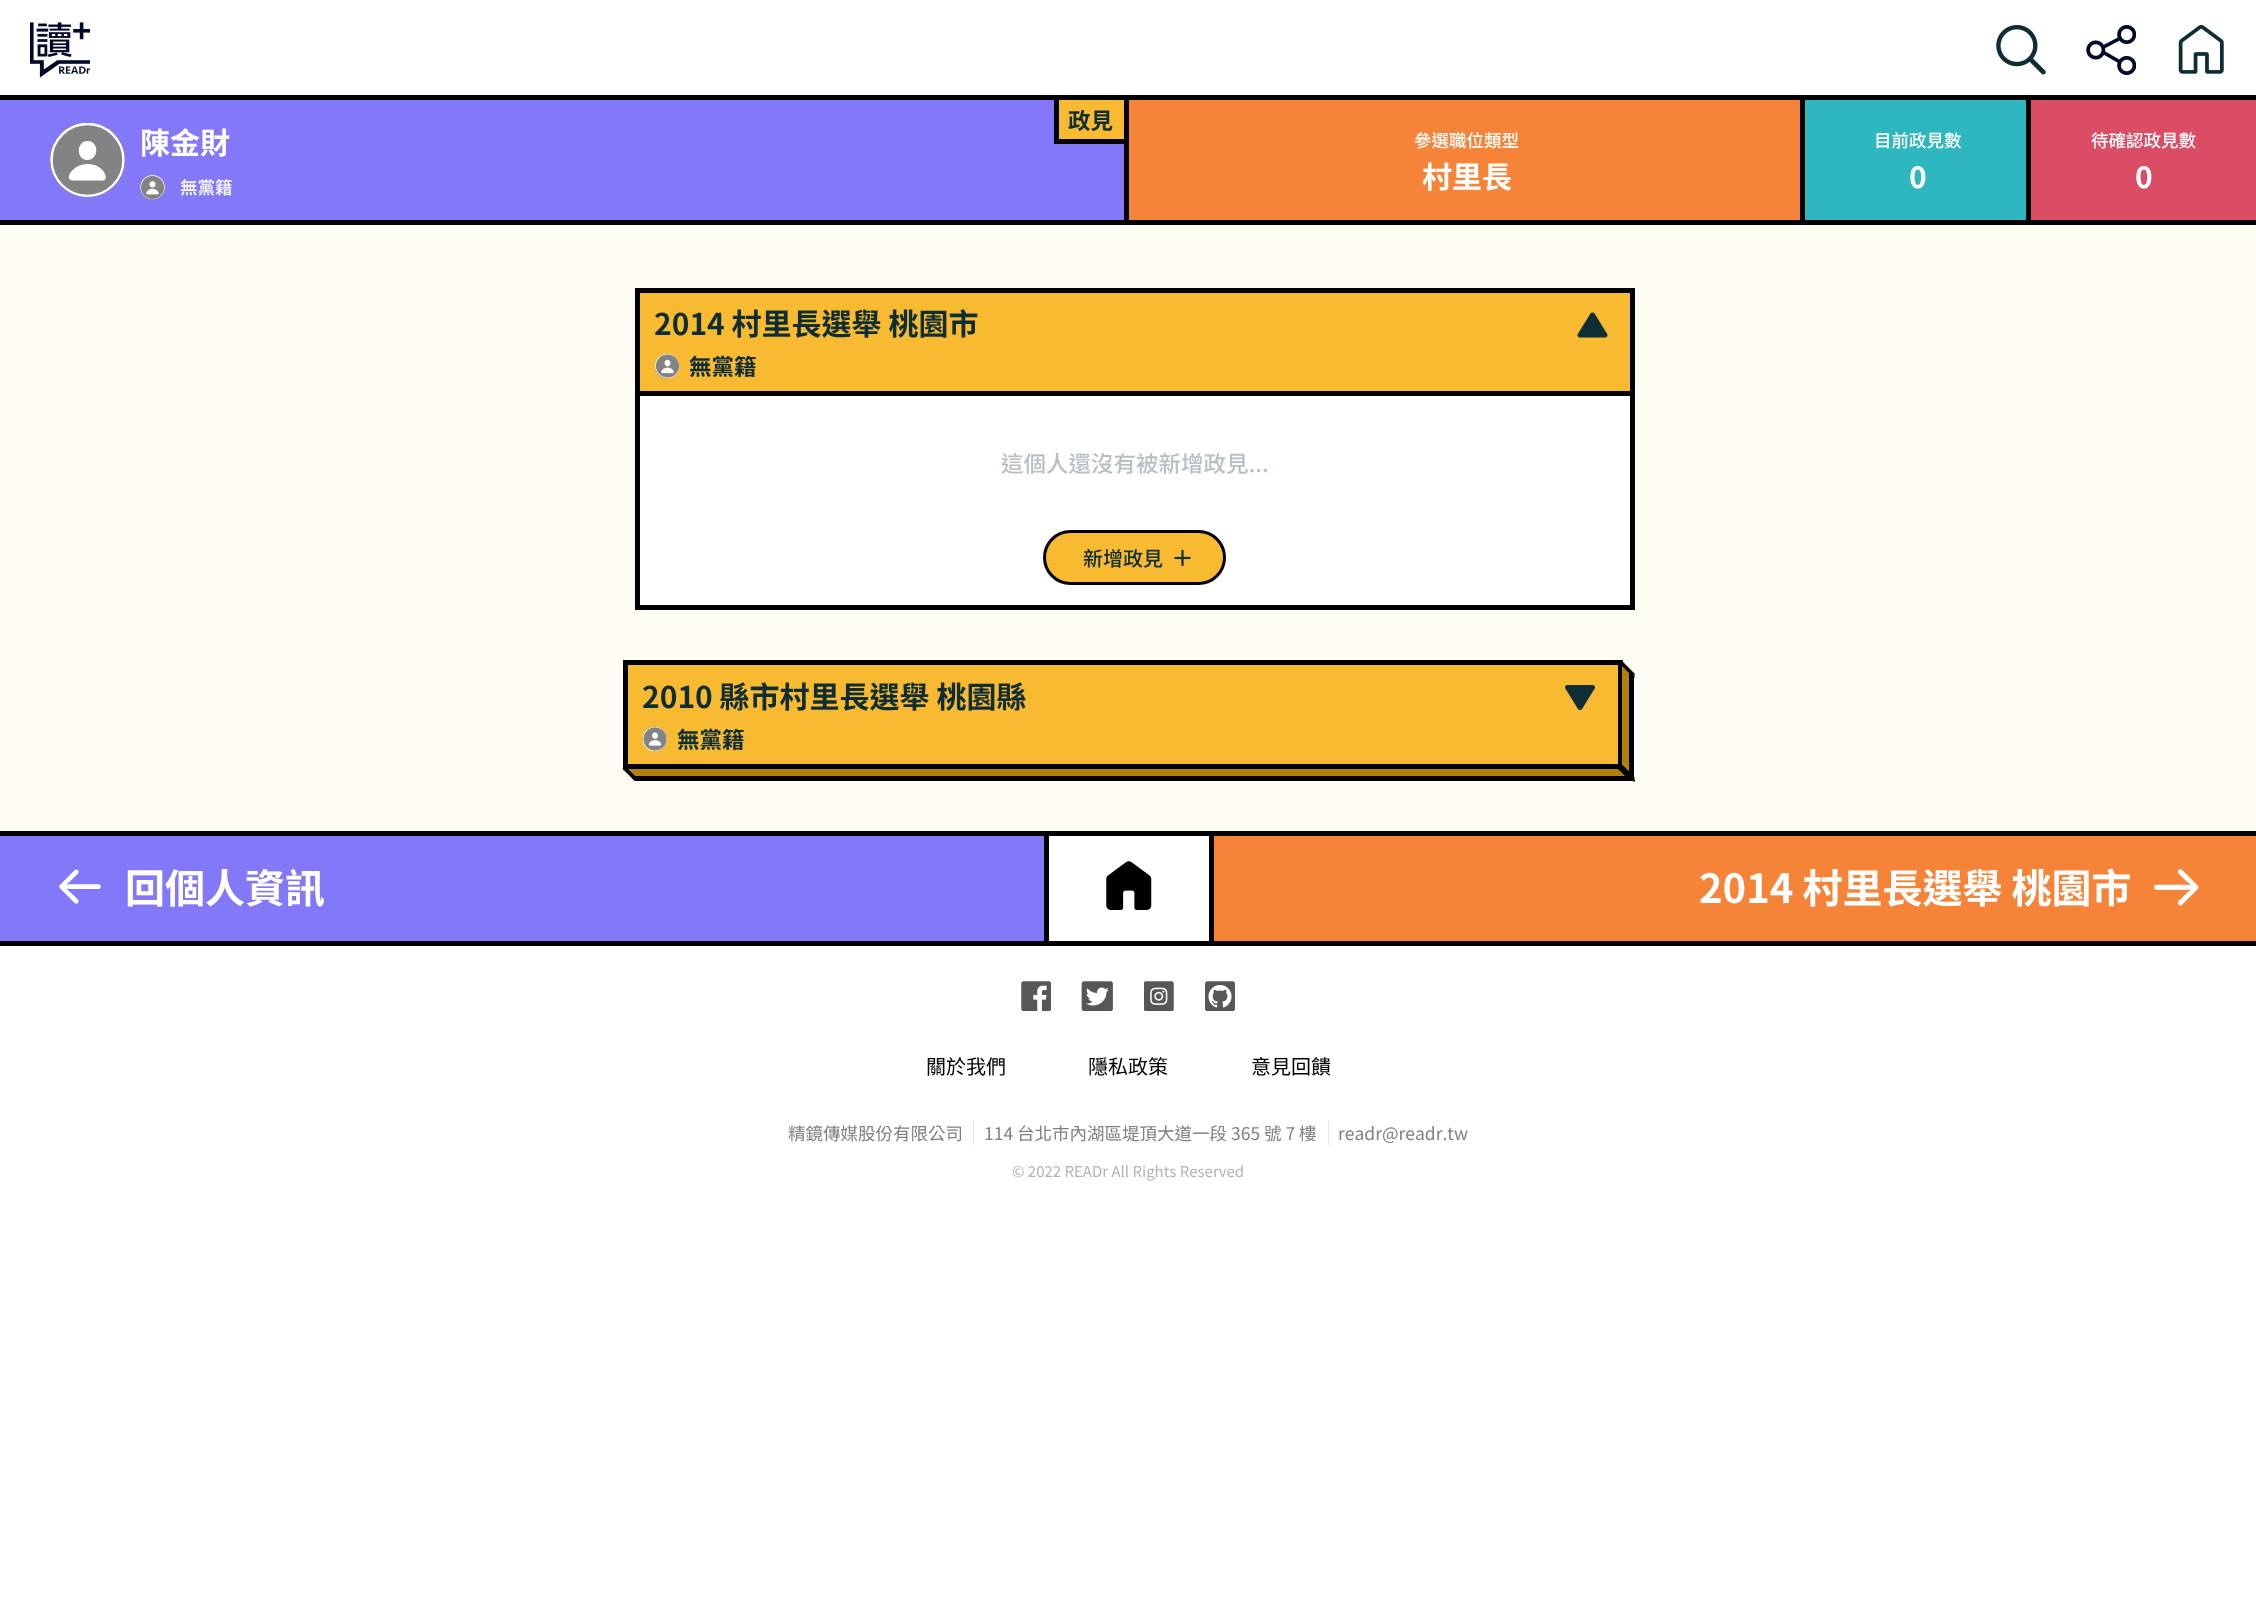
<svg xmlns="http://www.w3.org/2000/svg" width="2256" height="1606">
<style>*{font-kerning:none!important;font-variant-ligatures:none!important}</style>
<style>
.a{font:bold 22.5px Noto Sans TC;fill:#0f2d35}
.b{font:bold 30px Noto Sans TC;fill:#fff}
.c{font:500 17.5px Noto Sans TC;fill:#fff}
.d{font:bold 30px Noto Sans TC;fill:#0f2d35}
.e{font:500 22.5px Noto Sans TC;fill:#b7c0c2}
.f{font:500 20px Noto Sans TC;fill:#0f2d35}
.g{font:bold 40px Noto Sans TC;fill:#fff}
.h{font:20px Noto Sans TC;fill:#000}
.i{font:17.5px Noto Sans TC;fill:#808080}
.j{font:15px Noto Sans TC;fill:#b3b3b3}
</style>
<defs>
<clipPath id="clip1"><path d="M50 123h75v75H50z"/></clipPath>
<clipPath id="clip2"><path d="M87.5 122c20.5 0 37.5 16.5 37.5 37.5c0 20.5-17 37.5-37.5 37.5c-20.5 0-37.5-17-37.5-37.5c0-21 17-37.5 37.5-37.5z"/></clipPath>
</defs>
<rect width="100%" height="100%" fill="#fff"/>
<path fill="#000" d="M0 95h2256v5H0z"/>
<image href="1.png" x="30" y="22" width="60" height="56"/>
<image href="2.png" x="1996" y="25" width="50" height="50"/>
<image href="3.png" x="2086" y="25" width="50" height="50"/>
<image href="4.png" x="2178" y="25" width="46" height="49"/>
<path fill="#fffcf3" d="M0 225h2256v606H0z"/>
<path fill="#8379f8" d="M0 100h1124v120H0z"/>
<path fill="#000" d="M1124 100h5v125H1124z"/>
<path fill="#000" d="M0 220h1129v5H0z"/>
<path fill="#f7ba31" d="M1059 100h65v39H1059z"/>
<path fill="#000" d="M1054 100h5v44H1054z"/>
<path fill="#000" d="M1054 139h75v5H1054z"/>
<path fill="#838383" d="M88 123c20 0 37 16 37 37c0 20-17 37-37 37c-21 0-38-17-38-37c0-21 17-37 38-37z"/>
<g clip-path="url(#clip1)">
<g clip-path="url(#clip2)">
<circle fill="none" stroke="#fff" stroke-width="2.5" cx="87.5" cy="160" r="36"/>
</g>
</g>
<path fill="#fff" d="M73 180.5h24c2 0 6 .5 7.5-.5c2-1 1.5-3 1-4.5c-1-4.5-5-7.5-8.5-9.5c-20.5-9-36 14.5-24 14.5zm14.5-20.5c11.5 0 12-19 0-19c-11.5 0-11.5 19 0 19z"/>
<path fill="#838383" d="M152.5 175c7 0 12.5 5.5 12.5 12c0 7-5.5 12.5-12.5 12.5c-7 0-12.5-5.5-12.5-12.5c0-6.5 5.5-12 12.5-12z"/>
<image href="5.png" x="140" y="175" width="25" height="25"/>
<path fill="#f58439" d="M1129 100h671v120H1129z"/>
<path fill="#000" d="M1800 100h5v125H1800z"/>
<path fill="#000" d="M1129 220h676v5H1129z"/>
<path fill="#2fb7bf" d="M1805 100h221v120H1805z"/>
<path fill="#000" d="M2026 100h5v125H2026z"/>
<path fill="#000" d="M1805 220h451v5H1805z"/>
<path fill="#db4c65" d="M2031 100h225v120H2031z"/>
<path fill="#f7ba31" d="M640 293h990v98H640z"/>
<path fill="#000" d="M1630 288h5v322H1630z"/>
<path fill="#000" d="M635 288h5v322H635z"/>
<path fill="#000" d="M635 391h1000v5H635z"/>
<path fill="#000" d="M635 288h1000v5H635z"/>
<path fill="#838383" d="M667.5 354c15.5 0 16.5 23.5-.5 24.5c-12 1-16-16-6.5-22.5c2-1.5 4.5-2 7-2z"/>
<image href="6.png" x="655" y="354" width="25" height="25"/>
<image href="7.png" x="1577" y="312" width="31" height="26"/>
<path fill="#fff" d="M640 396h990v209H640z"/>
<path fill="#000" d="M635 605h1000v5H635z"/>
<rect fill="#f7ba31" stroke="#000" stroke-width="3" x="1044.5" y="531.5" width="180" height="52" rx="26"/>
<image href="8.png" x="1174" y="549" width="17" height="18"/>
<path fill="#f7ba31" d="M628 665h990v99H628z"/>
<path fill="#000" d="M1618 660h4v109H1618z"/>
<path fill="#000" d="M623 660h5v109H623z"/>
<path fill="#000" d="M623 764h1000v5H623z"/>
<path fill="#000" d="M623 660h1000v5H623z"/>
<path fill="#838383" d="M654.5 726.5c2.5 0 5 1 7 2c9.5 6.5 5.5 23.5-6 22.5c-17-1.5-16-24.5-1-24.5z"/>
<image href="9.png" x="643" y="726" width="24" height="25"/>
<image href="10.png" x="1565" y="685" width="30" height="25"/>
<path fill="#b3800d" d="M622 769h1000l13 12h-1000z"/>
<path fill="#000" d="M1617.5 768.5h5l12.5 12.5h-5z"/>
<path fill="#000" d="M622.5 768.5h5l12.5 12.5h-5z"/>
<path fill="#000" d="M630 776h1000l5 5h-1000z"/>
<path fill="#b3800d" d="M1622 661l12 13v108l-12-13z"/>
<path fill="#000" d="M1629 669l5 5v108l-5-5z"/>
<path fill="#000" d="M1622 661l12.5 12.5v5l-12.5-12.5z"/>
<path fill="#000" d="M1622 764.5l12.5 12.5v5l-12.5-12.5z"/>
<path fill="#8379f8" d="M0 836h1044v105H0z"/>
<path fill="#000" d="M1044 831h5v110H1044z"/>
<path fill="#000" d="M0 831h1209v5H0z"/>
<image href="11.png" x="59" y="869" width="42" height="35"/>
<image href="12.png" x="1106" y="861" width="46" height="49"/>
<path fill="#f58439" d="M1214 836h1042v105H1214z"/>
<path fill="#000" d="M1209 831h5v110H1209z"/>
<path fill="#000" d="M1209 831h1047v5H1209z"/>
<image href="13.png" x="2154" y="869" width="45" height="37"/>
<path fill="#000" d="M0 941h2256v5H0z"/>
<image href="14.png" x="1021" y="981" width="30" height="30"/>
<image href="15.png" x="1081" y="981" width="32" height="30"/>
<image href="16.png" x="1144" y="981" width="30" height="30"/>
<image href="17.png" x="1205" y="981" width="30" height="30"/>
<path fill="#e6e6e6" d="M973 1120h1v25H973z"/>
<path fill="#e6e6e6" d="M1328 1120h1v25H1328z"/>
<text class="a" x="1068" y="129">政見</text>
<text class="b" x="140" y="154">陳金財</text>
<text class="c" x="180" y="194">無黨籍</text>
<text class="c" x="1414" y="147">參選職位類型</text>
<text class="b" x="1422" y="188">村里長</text>
<text class="c" x="1874" y="147">目前政見數</text>
<text class="b" x="1909" y="188">0</text>
<text class="c" x="2091" y="147">待確認政見數</text>
<text class="b" x="2135" y="188">0</text>
<text class="d" x="654" y="335">2014 村里長選舉 桃園市</text>
<text class="a" x="689" y="375">無黨籍</text>
<text class="e" x="1001" y="472">這個人還沒有被新增政見...</text>
<text class="f" x="1083" y="566">新增政見</text>
<text class="d" x="642" y="708">2010 縣市村里長選舉 桃園縣</text>
<text class="a" x="677" y="748">無黨籍</text>
<text class="g" x="125" y="903">回個人資訊</text>
<text class="g" x="1699" y="903">2014 村里長選舉 桃園市</text>
<text class="h" x="926" y="1074">關於我們</text>
<text class="h" x="1088" y="1074">隱私政策</text>
<text class="h" x="1251" y="1074">意見回饋</text>
<text class="i" x="788" y="1140">精鏡傳媒股份有限公司</text>
<text class="i" x="984" y="1140">114 台北市內湖區堤頂大道一段 365 號 7 樓</text>
<text class="i" x="1338" y="1140">readr@readr.tw</text>
<text class="j" x="1012" y="1177">© 2022 READr All Rights Reserved</text>
</svg>
